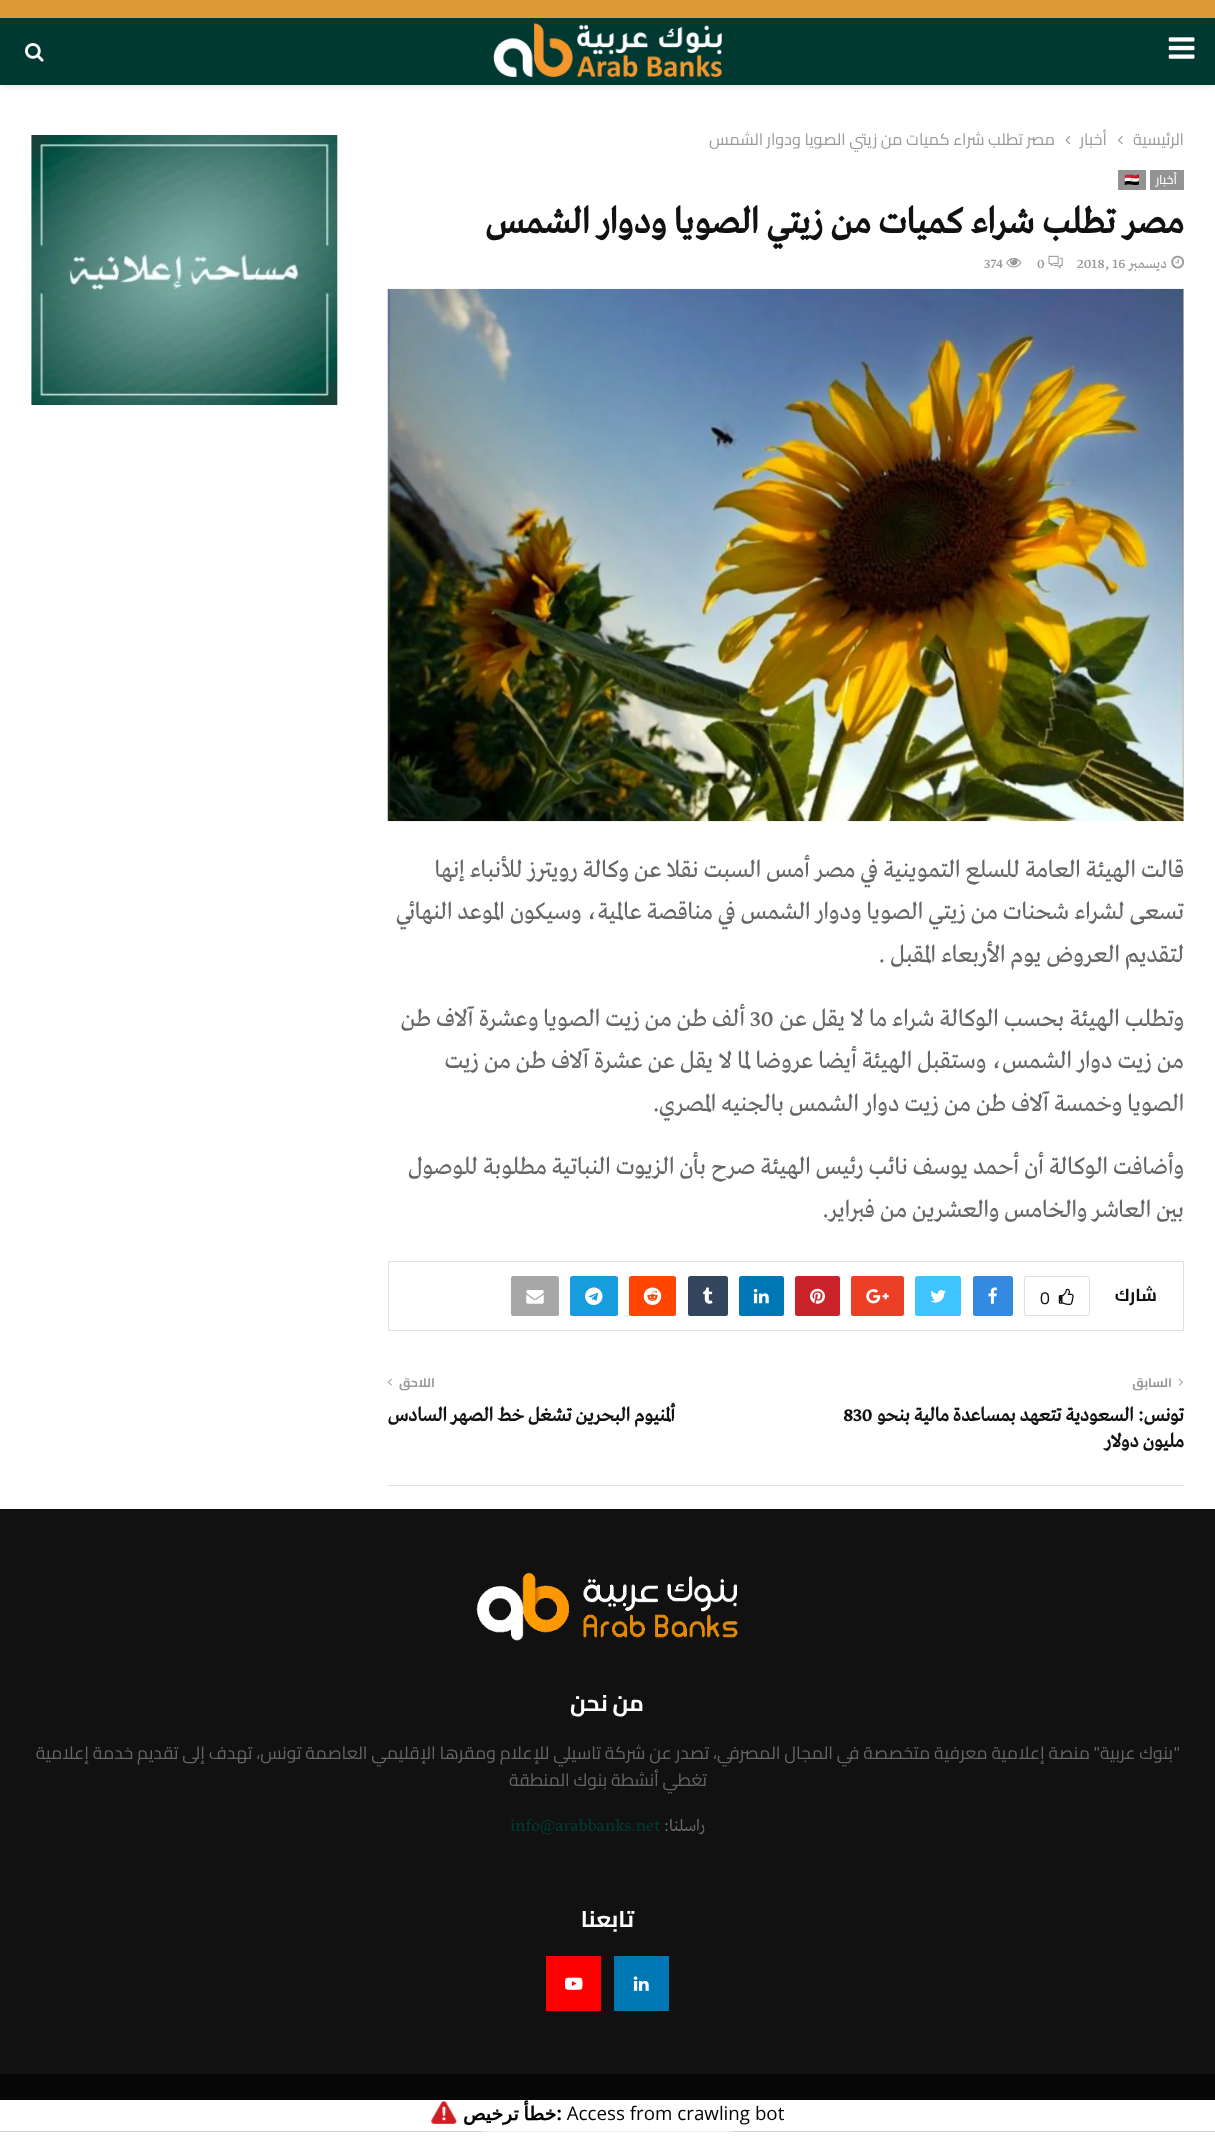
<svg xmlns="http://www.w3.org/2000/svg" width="1215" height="2137">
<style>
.a{font:16.25px Cairo;direction:rtl;fill:#999}
.b{font:500 12.5px Cairo;direction:rtl;fill:#fff}
.c{font:12.5px Noto Color Emoji;fill:#fff}
.d{font:bold 37.5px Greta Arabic;direction:rtl;fill:#111}
.e{font:15px Greta Arabic;direction:rtl;fill:#999}
.f{font:15px Greta Arabic;fill:#999}
.g{font:25px Greta Arabic;direction:rtl;fill:#666}
.h{font:25px Greta Arabic;fill:#666}
.i{font:bold 17.5px Cairo;direction:rtl;fill:#111}
.j{font:17.5px 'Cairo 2';fill:#111}
.k{font:bold 12.5px Cairo;direction:rtl;fill:#999}
.l{font:bold 20px Greta Arabic;direction:rtl;fill:#111}
.m{font:bold 20px Greta Arabic;fill:#111}
.n{font:bold 22.5px Cairo;direction:rtl;fill:#fff}
.o{font:17.5px 'Cairo 2';direction:rtl;fill:#666}
.p{font:17.5px Cairo;direction:rtl;fill:#666}
.q{font:17.5px Greta Arabic;direction:rtl;fill:#666}
.r{font:17.5px Greta Arabic;fill:#003931}
</style>
<rect width="100%" height="100%" fill="#fff"/>
<path fill="#d93" d="M0 0h1215v18H0z"/>
<path fill="#bebebe75" filter="blur(3px)" d="M0 19h1215v67H0z"/>
<path fill="#003931" d="M0 18h1215v67H0z"/>
<image href="1.png" x="1168" y="37" width="27" height="22"/>
<image href="2.png" x="493" y="23" width="229" height="54"/>
<image href="3.png" x="25" y="43" width="19" height="19"/>
<image href="4.png" x="1118" y="136" width="5" height="9"/>
<image href="5.png" x="1065" y="136" width="6" height="9"/>
<path fill="#939393" d="M1150 170h34v20H1150z"/>
<path fill="#939393" d="M1118 170h28v20H1118z"/>
<image href="6.png" x="1171" y="255" width="14" height="14"/>
<image href="7.png" x="1048" y="255" width="15" height="14"/>
<image href="8.png" x="1006" y="257" width="16" height="11"/>
<image href="9.png" x="387" y="288" width="797" height="534"/>
<path fill="none" stroke="#dedede" d="M388.5 1261.5h795v69H388.5z"/>
<rect fill="none" stroke="#dedede" x="1024.5" y="1276.5" width="65" height="39" rx="2"/>
<image href="10.png" x="1058" y="1288" width="16" height="17"/>
<rect fill="#338ae0" x="973" y="1276" width="40" height="40" rx="2.5"/>
<image href="11.png" x="988" y="1287" width="9" height="17"/>
<rect fill="#40c4ff" x="915" y="1276" width="46" height="40" rx="2.5"/>
<image href="12.png" x="930" y="1290" width="16" height="13"/>
<rect fill="#eb4026" x="851" y="1276" width="53" height="40" rx="2.5"/>
<image href="13.png" x="866" y="1289" width="23" height="15"/>
<rect fill="#c92228" x="795" y="1276" width="45" height="40" rx="2.5"/>
<image href="14.png" x="810" y="1288" width="15" height="16"/>
<rect fill="#0077b5" x="739" y="1276" width="45" height="40" rx="2.5"/>
<image href="15.png" x="753" y="1289" width="16" height="15"/>
<rect fill="#34465d" x="688" y="1276" width="40" height="40" rx="2.5"/>
<image href="16.png" x="703" y="1287" width="10" height="17"/>
<rect fill="#ff4500" x="629" y="1276" width="47" height="40" rx="2.5"/>
<image href="17.png" x="643" y="1287" width="19" height="18"/>
<rect fill="#179cde" x="570" y="1276" width="48" height="40" rx="2.5"/>
<image href="18.png" x="585" y="1287" width="18" height="18"/>
<rect fill="#a7a7a7" x="511" y="1276" width="48" height="40" rx="2.5"/>
<image href="19.png" x="526" y="1290" width="18" height="14"/>
<path fill="#dedede" d="M388 1485h796v1H388z"/>
<image href="20.png" x="1178" y="1378" width="5" height="8"/>
<image href="21.png" x="388" y="1378" width="4" height="8"/>
<path fill="#f5f5f5" d="M31 135h307v270H31z"/>
<image href="22.png" x="31" y="135" width="307" height="270"/>
<path fill="#111" d="M0 1509h1215v565H0z"/>
<image href="23.png" x="476" y="1572" width="262" height="69"/>
<path fill="#0077b5" d="M614 1956h55v55H614z"/>
<image href="24.png" x="633" y="1976" width="16" height="15"/>
<path fill="#f00" d="M546 1956h55v55H546z"/>
<image href="25.png" x="565" y="1977" width="18" height="13"/>
<path fill="#060606" d="M0 2074h1215v58H0z"/>
<image href="26.png" x="0" y="2100" width="1215" height="37"/>
<text class="a" x="1184" y="145">الرئيسية</text>
<text class="a" x="1107" y="145">أخبار</text>
<text class="a" x="1055" y="145">مصر تطلب شراء كميات من زيتي الصويا ودوار الشمس</text>
<text class="b" x="1177" y="184">أخبار</text>
<text class="c" x="1124" y="184">🇪🇬</text>
<text class="d" x="1184" y="233">مصر تطلب شراء كميات من زيتي الصويا ودوار الشمس</text>
<text class="e" x="1167" y="268">ديسمبر</text>
<text class="f" x="1077" y="268">2018, 16</text>
<text class="f" x="1037" y="268">0</text>
<text class="f" x="984" y="268">374</text>
<text class="g" x="1184" y="877">قالت الهيئة العامة للسلع التموينية في مصر أمس السبت نقلا عن وكالة رويترز للأنباء إنها</text>
<text class="g" x="1184" y="919">تسعى لشراء شحنات من زيتي الصويا ودوار الشمس في مناقصة عالمية، وسيكون الموعد النهائي</text>
<text class="g" x="1184" y="962">لتقديم العروض يوم الأربعاء المقبل .</text>
<text class="g" x="1184" y="1026">وتطلب الهيئة بحسب الوكالة شراء ما لا يقل عن</text>
<text class="h" x="750" y="1026">30</text>
<text class="g" x="745" y="1026">ألف طن من زيت الصويا وعشرة آلاف طن</text>
<text class="g" x="1184" y="1068">من زيت دوار الشمس، وستقبل الهيئة أيضا عروضا لما لا يقل عن عشرة آلاف طن من زيت</text>
<text class="g" x="1184" y="1111">الصويا وخمسة آلاف طن من زيت دوار الشمس بالجنيه المصري.</text>
<text class="g" x="1184" y="1174">وأضافت الوكالة أن أحمد يوسف نائب رئيس الهيئة صرح بأن الزيوت النباتية مطلوبة للوصول</text>
<text class="g" x="1184" y="1217">بين العاشر والخامس والعشرين من فبراير.</text>
<text class="i" x="1157" y="1301">شارك</text>
<text class="j" x="1040" y="1304">0</text>
<text class="k" x="1172" y="1387">السابق</text>
<text class="l" x="1184" y="1421">تونس: السعودية تتعهد بمساعدة مالية بنحو</text>
<text class="m" x="843" y="1421">830</text>
<text class="l" x="1184" y="1447">مليون دولار</text>
<text class="k" x="435" y="1387">اللاحق</text>
<text class="l" x="675" y="1421">ألمنيوم البحرين تشغل خط الصهر السادس</text>
<text class="n" x="644" y="1711">من نحن</text>
<text class="o" x="1180" y="1759">"</text>
<text class="p" x="1173" y="1759">بنوك عربية</text>
<text class="o" x="1100" y="1759">"</text>
<text class="p" x="1090" y="1759">منصة إعلامية معرفية متخصصة في المجال المصرفي، تصدر عن شركة تاسيلي للإعلام ومقرها الإقليمي العاصمة تونس، تهدف إلى تقديم خدمة إعلامية</text>
<text class="p" x="707" y="1786">تغطي أنشطة بنوك المنطقة</text>
<text class="q" x="705" y="1831">راسلنا:</text>
<text class="r" x="510" y="1831">info@arabbanks.net</text>
<text class="n" x="634" y="1927">تابعنا</text>
</svg>
